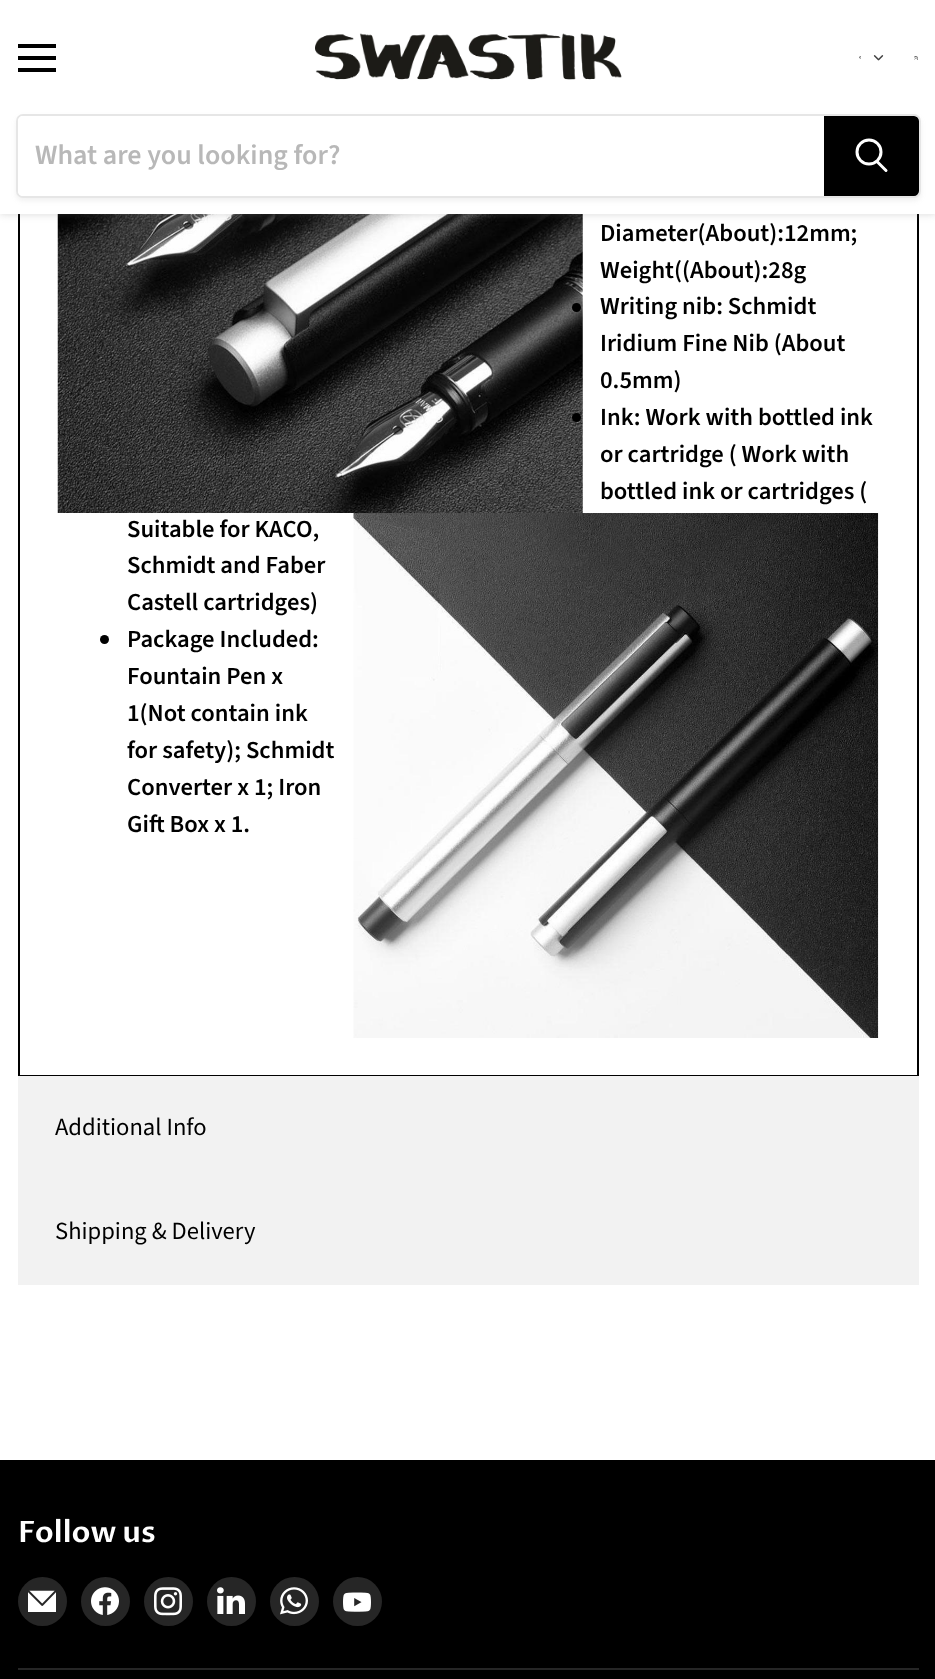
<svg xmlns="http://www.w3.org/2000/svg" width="935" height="1679">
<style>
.a{font:600 28px Source Sans Pro;fill:#b8b8b8}
.b{font:600 24.6px Source Sans Pro;fill:#000}
.c{font:24.6px Source Sans Pro;fill:#000}
.d{font:600 29.5px Proza Libre;fill:#fff}
</style>
<defs>
<clipPath id="clip1"><path d="M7 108h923v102h-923zm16 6h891c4 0 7 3 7 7v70c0 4-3 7-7 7h-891c-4 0-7-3-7-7v-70c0-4 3-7 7-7z" clip-rule="evenodd"/></clipPath>
</defs>
<rect width="100%" height="100%" fill="#fff"/>
<path fill="#000" d="M917 214h2v862H917z"/>
<path fill="#000" d="M18 1075h901v1H18z"/>
<path fill="#000" d="M18 214h2v862H18z"/>
<image href="5.png" x="57" y="214" width="526" height="299"/>
<path fill="#80808040" filter="blur(3.5px)" d="M0 2h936v213H0z"/>
<path fill="#fff" d="M0 0h935v214H0z"/>
<path fill="#000" d="M18 44h38v4H18z"/>
<path fill="#000" d="M18 56h38v4H18z"/>
<path fill="#000" d="M18 68h38v4H18z"/>
<image href="1.png" x="859" y="56" width="2" height="3"/>
<image href="2.png" x="873" y="55" width="11" height="6"/>
<image href="3.png" x="914" y="56" width="4" height="4"/>
<image href="4.png" x="315" y="33" width="307" height="47"/>
<g clip-path="url(#clip1)">
<rect fill="#8080801c" filter="blur(2.5px)" x="16" y="117" width="905" height="84" rx="7"/>
</g>
<rect fill="none" stroke="#80808033" stroke-width="2" x="17" y="115" width="903" height="82" rx="6"/>
<path fill="#fff" d="M23 116h801v80h-801c-3 0-5-2-5-5v-70c0-3 2-5 5-5z"/>
<path fill="#000" stroke="#000" stroke-width="2" d="M825 117h89c2 0 4 2 4 4v70c0 2-2 4-4 4h-89z"/>
<path fill="none" stroke="#fff" stroke-width="3" stroke-linecap="round" d="M886 170.5l-8.5-8.5"/>
<circle fill="none" stroke="#fff" stroke-width="3" cx="869" cy="152" r="12"/>
<circle fill="#000" cx="576.5" cy="307.5" r="4.5"/>
<circle fill="#000" cx="576.5" cy="417.5" r="4.5"/>
<circle fill="#000" cx="104.5" cy="639.5" r="4.5"/>
<image href="6.png" x="353" y="513" width="526" height="525"/>
<path fill="#f2f2f2" d="M18 1076h901v209H18z"/>
<path fill="#000" d="M0 1460h935v219H0z"/>
<path fill="#262626" d="M18 1668h901v2H18z"/>
<circle fill="#262626" cx="42.5" cy="1601.5" r="24.5"/>
<image href="7.png" x="28" y="1590" width="28" height="22"/>
<circle fill="#262626" cx="105.5" cy="1601.5" r="24.5"/>
<image href="8.png" x="91" y="1587" width="28" height="28"/>
<circle fill="#262626" cx="168.5" cy="1601.5" r="24.5"/>
<image href="9.png" x="154" y="1587" width="28" height="29"/>
<circle fill="#262626" cx="231.5" cy="1601.5" r="24.5"/>
<image href="10.png" x="217" y="1587" width="28" height="27"/>
<circle fill="#262626" cx="294.5" cy="1601.5" r="24.5"/>
<image href="11.png" x="280" y="1587" width="28" height="28"/>
<circle fill="#262626" cx="357.5" cy="1601.5" r="24.5"/>
<image href="12.png" x="343" y="1592" width="28" height="20"/>
<text class="a" x="35" y="164">What are you looking for?</text>
<text class="b" x="600" y="241">Diameter(About):12mm;</text>
<text class="b" x="600" y="278">Weight((About):28g</text>
<text class="b" x="600" y="314">Writing nib: Schmidt</text>
<text class="b" x="600" y="351">Iridium Fine Nib (About</text>
<text class="b" x="600" y="388">0.5mm)</text>
<text class="b" x="600" y="425">Ink: Work with bottled ink</text>
<text class="b" x="600" y="462">or cartridge ( Work with</text>
<text class="b" x="600" y="499">bottled ink or cartridges (</text>
<text class="b" x="127" y="537">Suitable for KACO,</text>
<text class="b" x="127" y="573">Schmidt and Faber</text>
<text class="b" x="127" y="610">Castell cartridges)</text>
<text class="b" x="127" y="647">Package Included:</text>
<text class="b" x="127" y="684">Fountain Pen x</text>
<text class="b" x="127" y="721">1(Not contain ink</text>
<text class="b" x="127" y="758">for safety); Schmidt</text>
<text class="b" x="127" y="795">Converter x 1; Iron</text>
<text class="b" x="127" y="832">Gift Box x 1.</text>
<text class="c" x="55" y="1135">Additional Info</text>
<text class="c" x="55" y="1239">Shipping &amp; Delivery</text>
<text class="d" x="18" y="1542">Follow us</text>
</svg>
